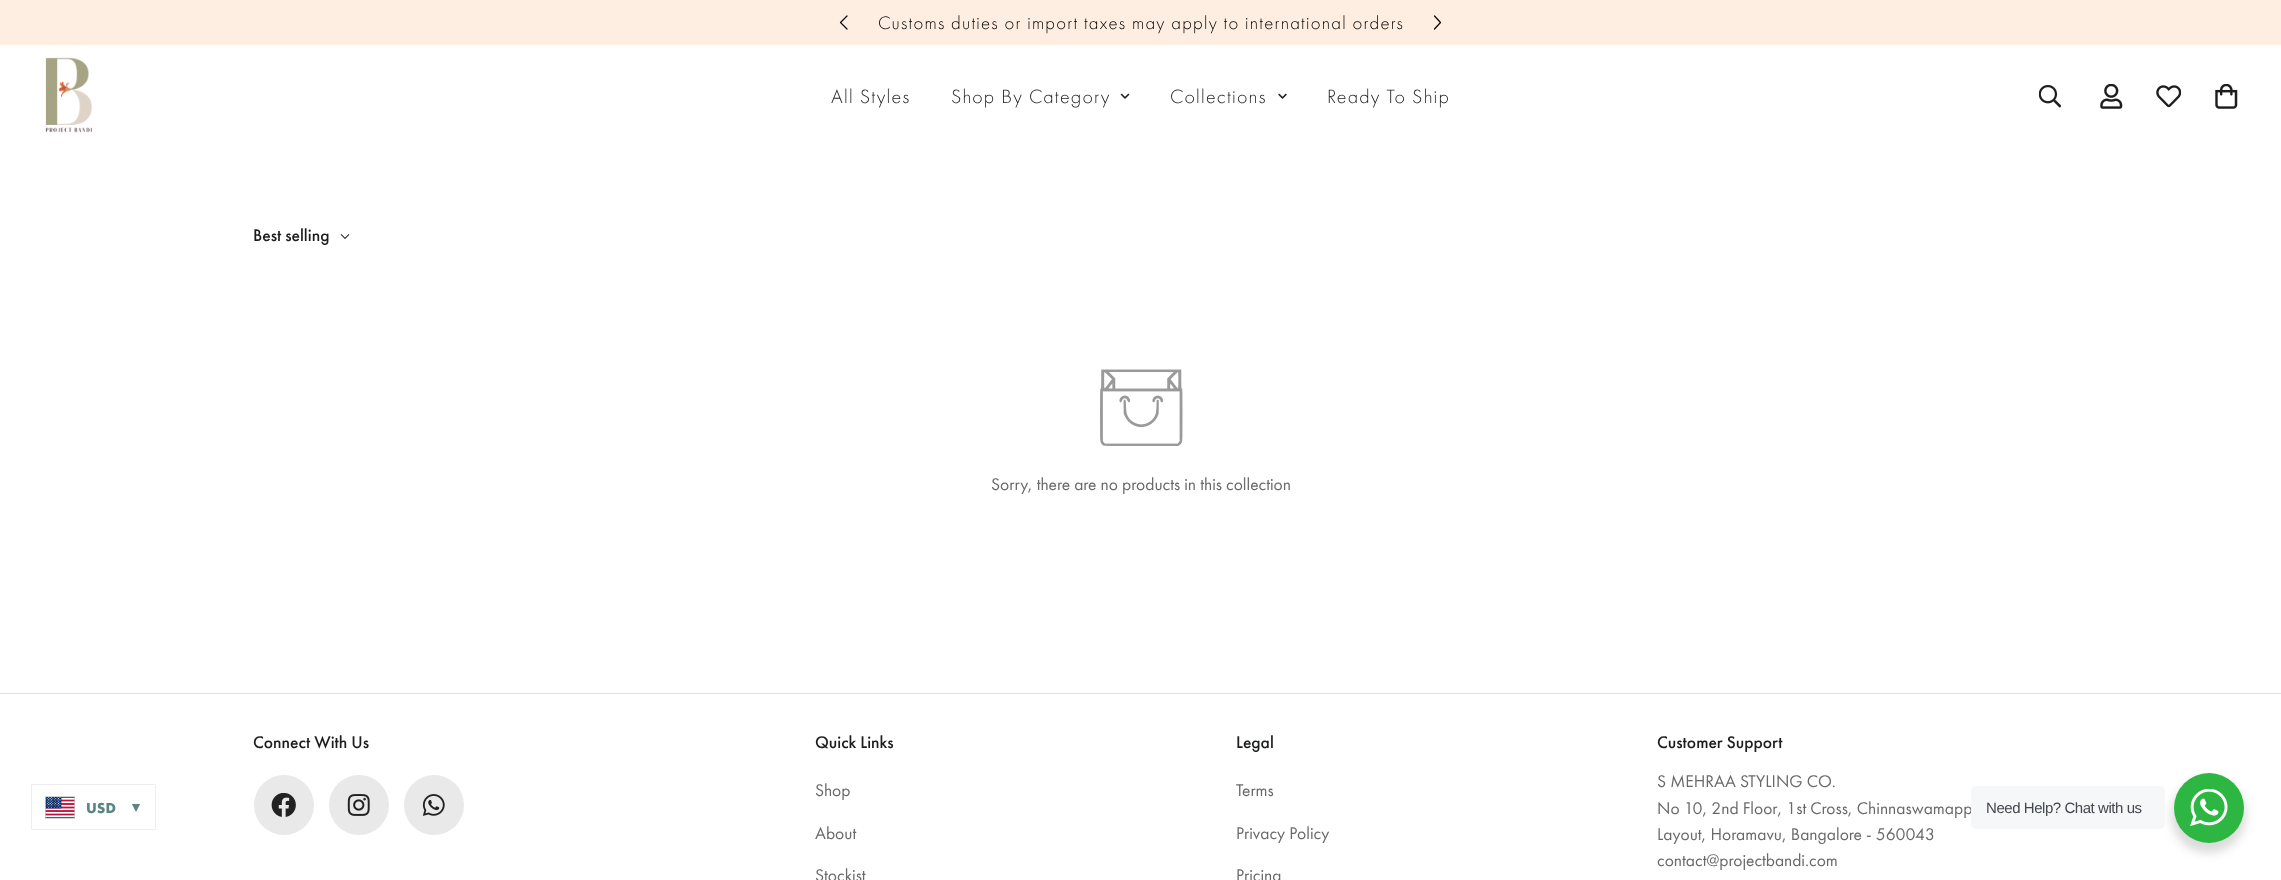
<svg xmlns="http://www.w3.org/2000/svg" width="2281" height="880">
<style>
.a{font:300 18.75px Futura PT;letter-spacing:1.25px;fill:#000}
.b{font:300 20px Futura PT;letter-spacing:1.25px;fill:#1c1d1d}
.c{font:500 17.5px Futura PT;fill:#1c1d1d}
.d{font:17.5px Futura PT;fill:#6b6868}
.e{font:bold 15px Futura PT;fill:#5b8583}
.f{font:bold 15px DejaVu Sans;fill:#5b8583}
.g{font:15px Liberation Sans;letter-spacing:-0.45px;fill:#43474e}
</style>
<rect width="100%" height="100%" fill="#fff"/>
<path fill="#feeee1" d="M0 0h2281v45H0z"/>
<path fill="none" stroke="#000" stroke-width="1.2" stroke-linecap="round" stroke-linejoin="round" d="M847 29l-6.5-6.5l6.5-6.5"/>
<path fill="none" stroke="#000" stroke-width="1.2" stroke-linecap="round" stroke-linejoin="round" d="M1434.5 29l6-6.5l-6-6.5"/>
<image href="1.png" x="45" y="57" width="48" height="76"/>
<image href="2.png" x="1120" y="93" width="10" height="6"/>
<image href="3.png" x="1278" y="93" width="9" height="6"/>
<image href="4.png" x="2039" y="85" width="22" height="23"/>
<image href="5.png" x="2100" y="84" width="23" height="25"/>
<image href="6.png" x="2156" y="85" width="25" height="23"/>
<image href="7.png" x="2215" y="84" width="23" height="25"/>
<image href="8.png" x="340" y="234" width="10" height="5"/>
<image href="9.png" x="1100" y="369" width="83" height="77"/>
<image href="10.png" x="45" y="796" width="30" height="23"/>
<path fill="none" stroke="#eee" d="M31.5 784.5h124v45H31.5z"/>
<path fill="#e3e1e1" d="M0 693h2281v1H0z"/>
<circle fill="#e9e9e9" cx="284" cy="805" r="30"/>
<image href="11.png" x="271" y="793" width="25" height="24"/>
<circle fill="#e9e9e9" cx="359" cy="805" r="30"/>
<image href="12.png" x="347" y="794" width="23" height="22"/>
<circle fill="#e9e9e9" cx="434" cy="805" r="30"/>
<image href="13.png" x="422" y="794" width="23" height="22"/>
<rect fill="#00000024" filter="blur(5px)" x="2171" y="778" width="75" height="75" rx="37.5"/>
<circle fill="#2db742" cx="2209" cy="808" r="35"/>
<image href="14.png" x="2190" y="789" width="38" height="37"/>
<text class="a" x="878" y="29">Customs duties or import taxes may apply to international orders</text>
<text class="b" x="831" y="103">All Styles</text>
<text class="b" x="951" y="103">Shop By Category</text>
<text class="b" x="1170" y="103">Collections</text>
<text class="b" x="1327" y="103">Ready To Ship</text>
<text class="c" x="253" y="241">Best selling</text>
<text class="d" x="991" y="490">Sorry, there are no products in this collection</text>
<text class="e" x="86" y="813">USD</text>
<text class="f" x="132" y="812">▾</text>
<text class="c" x="253" y="748">Connect With Us</text>
<text class="c" x="815" y="748">Quick Links</text>
<text class="d" x="815" y="796">Shop</text>
<text class="d" x="815" y="839">About</text>
<text class="d" x="815" y="881">Stockist</text>
<text class="c" x="1236" y="748">Legal</text>
<text class="d" x="1236" y="796">Terms</text>
<text class="d" x="1236" y="839">Privacy Policy</text>
<text class="d" x="1236" y="881">Pricing</text>
<text class="c" x="1657" y="748">Customer Support</text>
<text class="d" x="1657" y="787">S MEHRAA STYLING CO.</text>
<text class="d" x="1657" y="814">No 10, 2nd Floor, 1st Cross, Chinnaswamapp</text>
<text class="d" x="1657" y="840">Layout, Horamavu, Bangalore - 560043</text>
<text class="d" x="1657" y="866">contact@projectbandi.com</text>
<rect fill="#f5f7f9" x="1971" y="786" width="194" height="43" rx="5"/>
<text class="g" x="1986" y="813">Need Help? Chat with us</text>
</svg>
